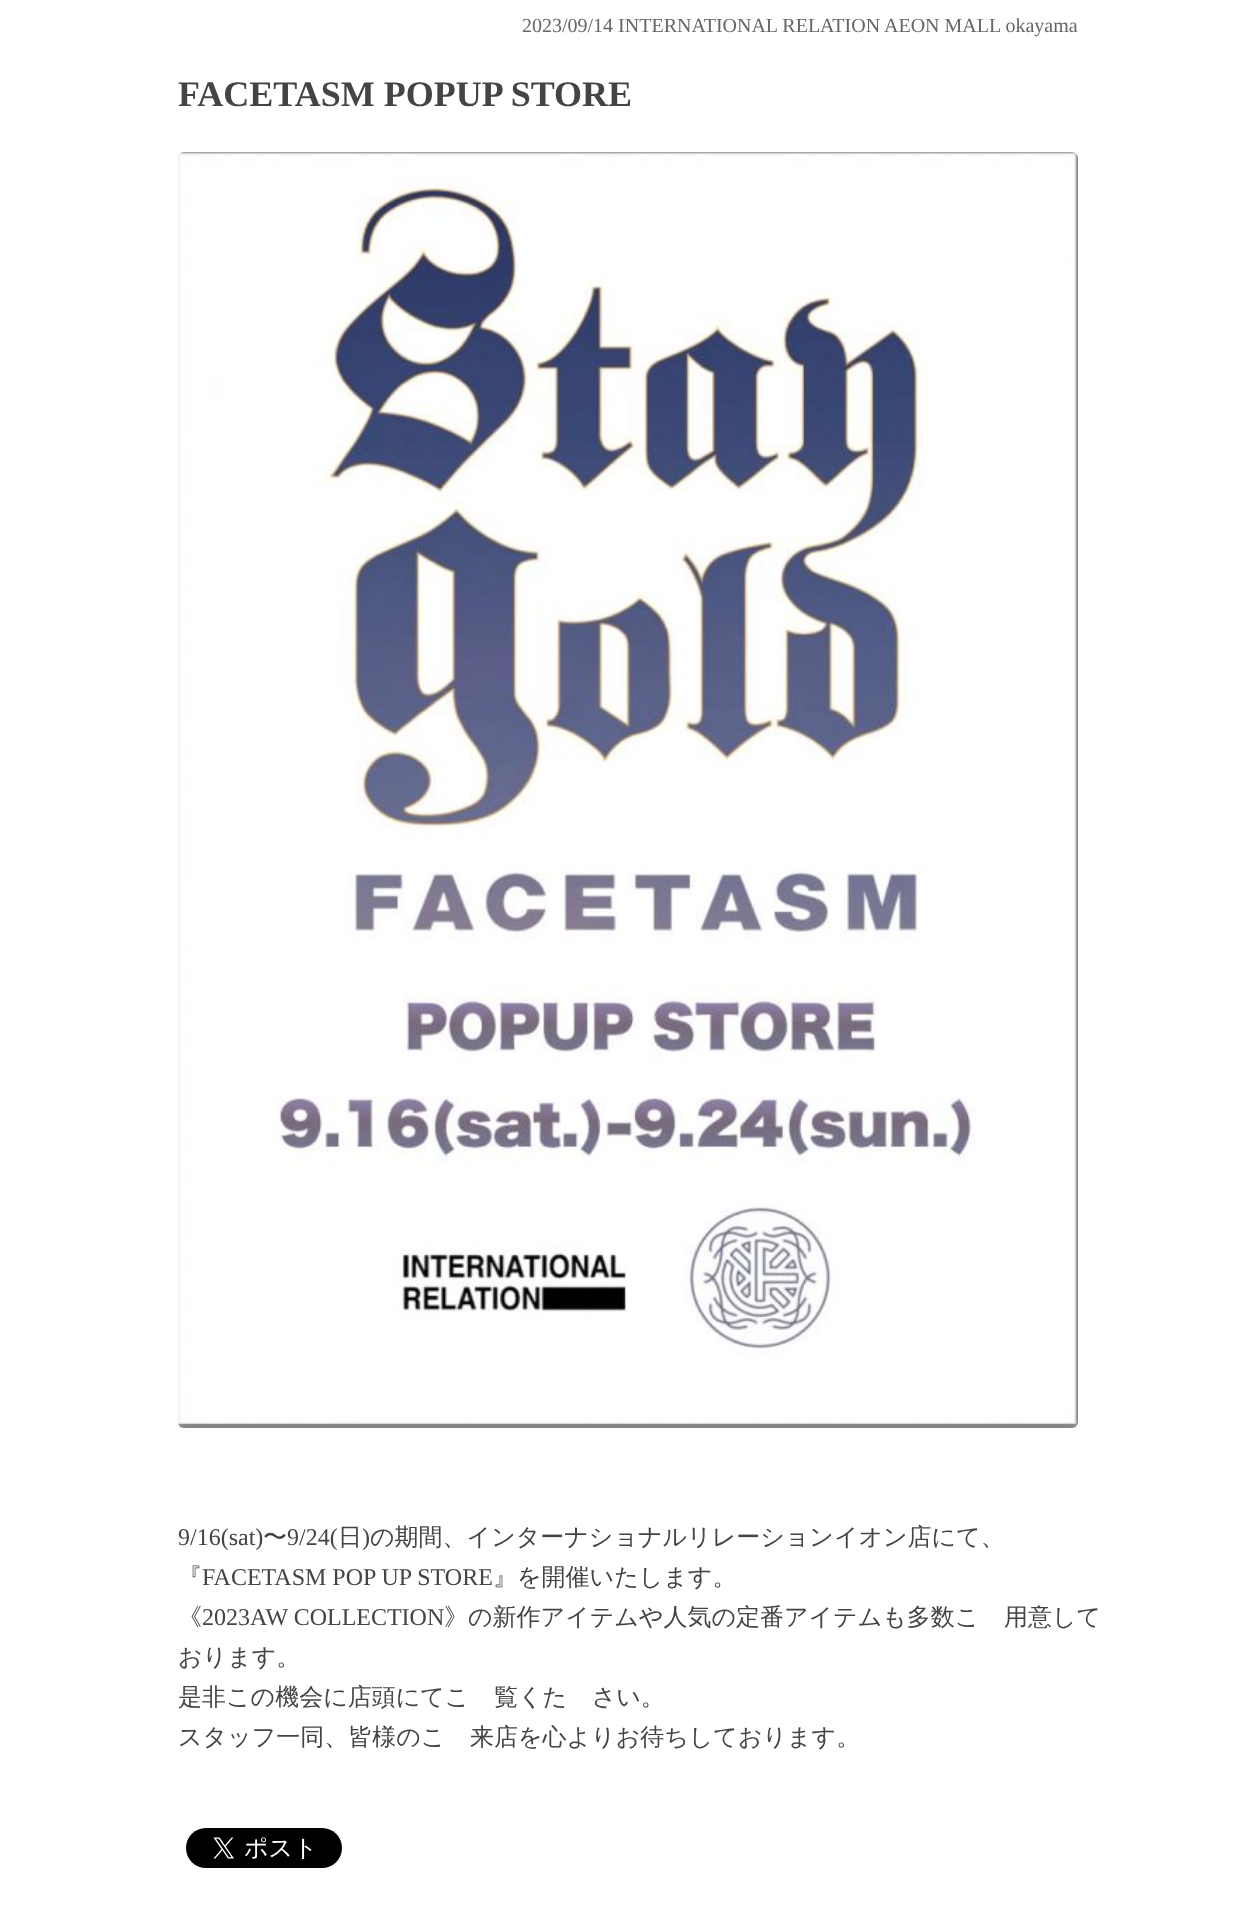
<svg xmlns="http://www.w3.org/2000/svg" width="1256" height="1906">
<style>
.a{font:20px Liberation Serif;fill:#666}
.b{font:bold 36px Liberation Serif;fill:#444}
.c{font:24px Liberation Serif;fill:#444}
.d{font:500 24px WenQuanYi Zen Hei;fill:#444}
</style>
<rect width="100%" height="100%" fill="#fff"/>
<image href="1.png" x="178" y="152" width="900" height="1276"/>
<image href="2.png" x="186" y="1828" width="156" height="40"/>
<text class="a" x="522" y="32">2023/09/14 INTERNATIONAL RELATION AEON MALL okayama</text>
<text class="b" x="178" y="106">FACETASM POPUP STORE</text>
<text class="c" x="178" y="1545">9/16(sat)</text>
<text class="d" x="263" y="1545">〜</text>
<text class="c" x="287" y="1545">9/24(</text>
<text class="d" x="338" y="1545">日</text>
<text class="c" x="362" y="1545">)</text>
<text class="d" x="370" y="1545">の期間、インターナショナルリレーションイオン店にて、</text>
<text class="d" x="178" y="1585">『</text>
<text class="c" x="202" y="1585">FACETASM POP UP STORE</text>
<text class="d" x="493" y="1585">』を開催いたします。</text>
<text class="d" x="178" y="1625">《</text>
<text class="c" x="202" y="1625">2023AW COLLECTION</text>
<text class="d" x="444" y="1625">》の新作アイテムや人気の定番アイテムも多数ご用意して</text>
<text class="d" x="178" y="1665">おります。</text>
<text class="d" x="178" y="1705">是非この機会に店頭にてご覧ください。</text>
<text class="d" x="178" y="1745">スタッフ一同、皆様のご来店を心よりお待ちしております。</text>
</svg>
